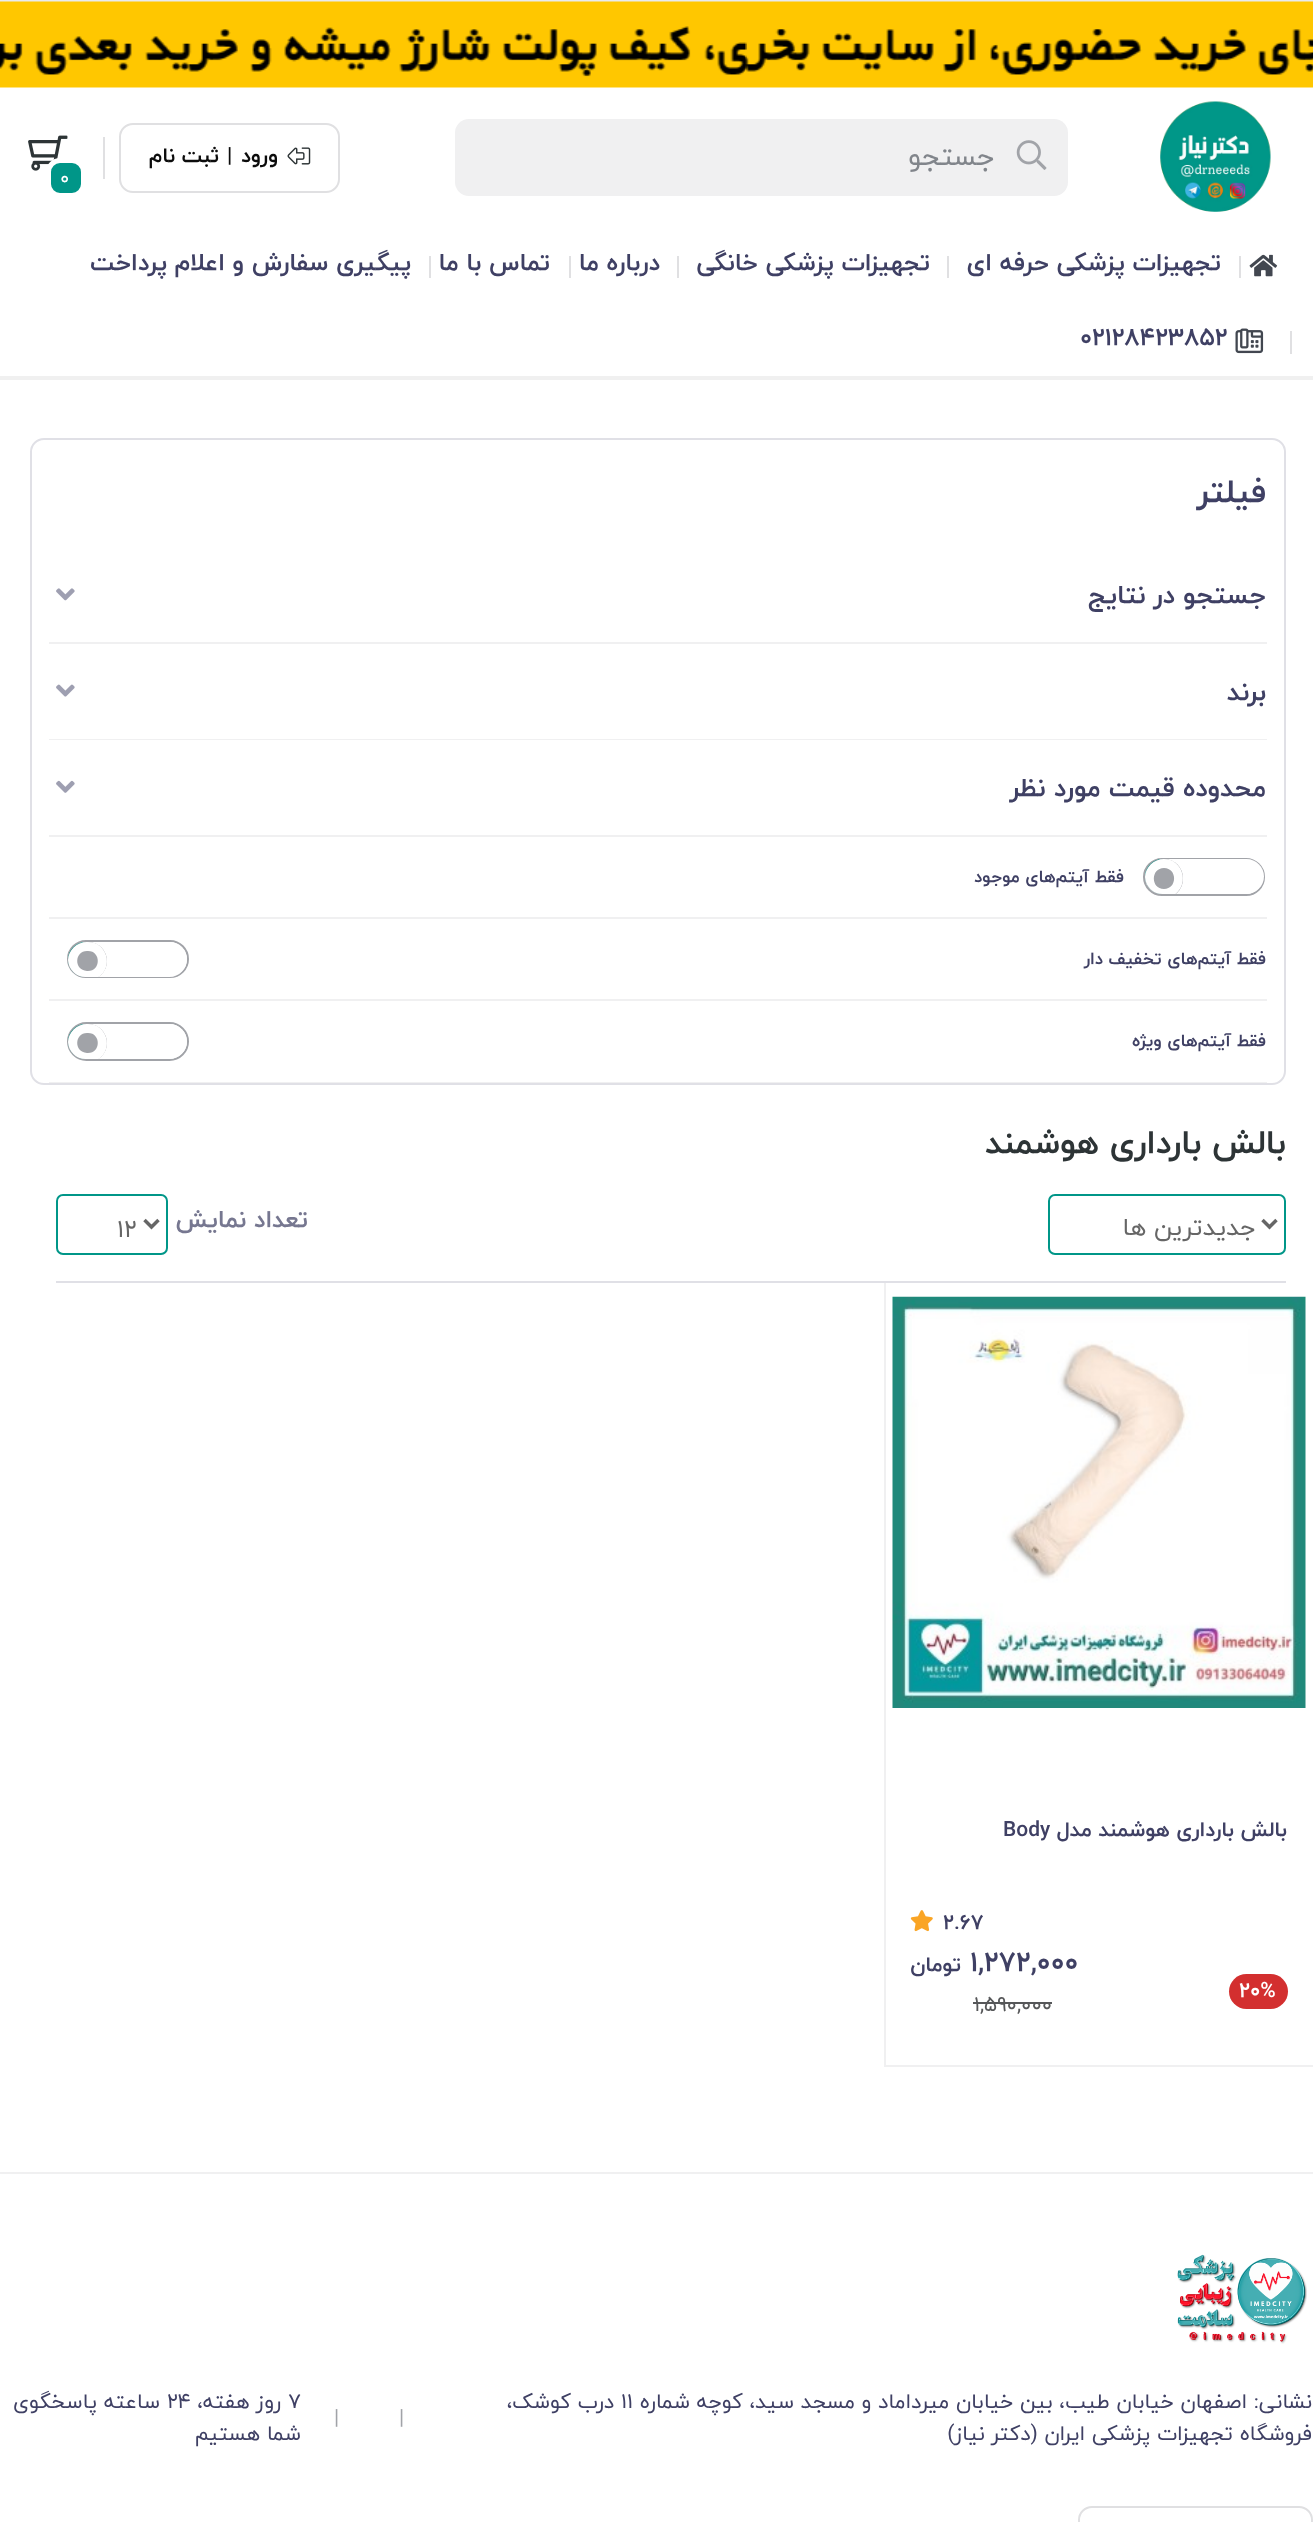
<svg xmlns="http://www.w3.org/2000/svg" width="1313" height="2522">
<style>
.a{font:28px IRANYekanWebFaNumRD;direction:rtl;fill:#81858b}
.b{font:bold 21px IRANYekanWebFaNumRD;direction:rtl;fill:#0c0c0c}
.c{font:bold 21px IRANYekanWebFaNumRD;fill:#0c0c0c}
.d{font:19px IRANYekanWebFaNumRD;fill:#fff}
.e{font:bold 24.5px IRANYekanWebFaNumRD;direction:rtl;fill:#3f4064}
.f{font:bold 24.5px IRANYekanWebFaNumRD;fill:#3f4064}
.g{font:bold 33px IRANYekanWebFaNumRD;direction:rtl;fill:#3f4064}
.h{font:bold 26.25px IRANYekanWebFaNumRD;direction:rtl;fill:#3f4064}
.i{font:bold 17.5px IRANYekanWebFaNumRD;direction:rtl;fill:#3f4064}
.j{font:bold 33.5px IRANYekanWebFaNumRD;direction:rtl;fill:#2d3436}
.k{font:24.5px IRANYekanWebFaNumRD;direction:rtl;fill:#666}
.l{font:bold 24.5px IRANYekanWebFaNumRD;direction:rtl;fill:#767790}
.m{font:24.5px IRANYekanWebFaNumRD;fill:#666}
.n{font:bold 21px IRANYekanWebFaNumRD;direction:rtl;fill:#3f4064}
.o{font:bold 21px IRANYekanWebFaNumRD;fill:#3f4064}
.p{font:bold 21px IRANYekanWebFaNumRD;fill:#fff}
.q{font:bold 28px IRANYekanWebFaNumRD;fill:#3f4064}
.r{font:21px IRANYekanWebFaNumRD;fill:#565759}
.s{font:21px IRANYekanWebFaNumRD;direction:rtl;fill:#3f4064}
.t{font:21px IRANYekanWebFaNumRD;fill:#3f4064}
.u{font:21px IRANYekanWebFaNumRD;fill:#a1a3a8}
</style>
<defs>
<clipPath id="clip1"><rect x="1145" y="859" width="119" height="35" rx="17.5"/></clipPath>
<clipPath id="clip2"><rect x="68" y="942" width="119" height="35" rx="17.5"/></clipPath>
<clipPath id="clip3"><rect x="68" y="1024" width="119" height="35" rx="17.5"/></clipPath>
</defs>
<rect width="100%" height="100%" fill="#fff"/>
<path fill="#f0f0f0" d="M0 376h1313v4H0z"/>
<image href="1.png" x="0" y="0" width="1313" height="88"/>
<image href="2.png" x="1160" y="101" width="111" height="111"/>
<rect fill="#f0f0f1" x="455" y="119" width="613" height="77" rx="14"/>
<image href="3.png" x="1016" y="140" width="31" height="30"/>
<rect fill="none" stroke="#e0e0e2" stroke-width="2" x="120" y="124" width="219" height="68" rx="13"/>
<image href="4.png" x="287" y="147" width="24" height="18"/>
<path fill="#e0e0e2" d="M103 137h2v42H103z"/>
<image href="5.png" x="28" y="135" width="40" height="36"/>
<rect fill="#009688" stroke="#fff" stroke-width="5" x="48.5" y="160.5" width="35" height="35" rx="11.5"/>
<image href="6.png" x="1249" y="254" width="29" height="23"/>
<path fill="#e0e0e2" d="M1239 256h2v22H1239z"/>
<path fill="#e0e0e2" d="M947 256h2v22H947z"/>
<path fill="#e0e0e2" d="M677 256h2v22H677z"/>
<path fill="#e0e0e2" d="M569 256h2v22H569z"/>
<path fill="#e0e0e2" d="M429 256h2v22H429z"/>
<path fill="#e0e0e2" d="M1290 331h2v23H1290z"/>
<image href="7.png" x="1235" y="328" width="29" height="26"/>
<rect fill="none" stroke="#e0e0e6" stroke-width="2" x="31" y="439" width="1254" height="645" rx="13"/>
<path fill="#f0f0f1" d="M49 642h1218v2H49z"/>
<image href="8.png" x="56" y="588" width="19" height="13"/>
<path fill="#f0f0f1" d="M49 739h1218v1H49z"/>
<image href="9.png" x="56" y="684" width="19" height="13"/>
<path fill="#f0f0f1" d="M49 835h1218v2H49z"/>
<image href="10.png" x="56" y="780" width="19" height="13"/>
<path fill="#f0f0f1" d="M49 917h1218v2H49z"/>
<rect fill="none" stroke="#a1a3a8" stroke-width="2" x="1144" y="859" width="120" height="36" rx="18"/>
<path fill="#009688" d="M1162.5 859h1.5v35h-1.5c-9.5 0-17.5-8-17.5-17.5c0-9.5 8-17.5 17.5-17.5z"/>
<path fill="#fff" d="M1164 859h82.5c9.5 0 17.5 8 17.5 17.5c0 9.5-8 17.5-17.5 17.5h-82.5z"/>
<g clip-path="url(#clip1)">
<rect fill="#a1a3a8" x="1145" y="859" width="38" height="39" rx="19"/>
</g>
<path fill="#fff" fill-rule="evenodd" d="M1164 859c-10 0-18.5 8-19 18c.5 9.5 8 17 17.5 17h13c14-11 7-35-11.5-35zm0 9c-13.5 0-13.5 21 0 21c13.5 0 13.5-21 0-21z"/>
<path fill="#f0f0f1" d="M49 999h1218v2H49z"/>
<rect fill="none" stroke="#a1a3a8" stroke-width="2" x="68" y="941" width="120" height="36" rx="18"/>
<path fill="#009688" d="M85.5 942h2.5v35h-2.5c-9.5 0-17.5-8-17.5-17.5c0-9.5 8-17.5 17.5-17.5z"/>
<path fill="#fff" d="M88 942h81.5c9.5 0 17.5 8 17.5 17.5c0 9.5-8 17.5-17.5 17.5h-81.5z"/>
<g clip-path="url(#clip2)">
<rect fill="#a1a3a8" x="68" y="942" width="39" height="38" rx="19"/>
</g>
<path fill="#fff" fill-rule="evenodd" d="M87 942c-10 0-18.5 8-19 18c.5 9.5 8 17 17.5 17h13c15.5-10 8.5-35-10.5-35zm0 9c-12.5 0-13.5 19 0 20c14 1 14.5-20 1-20z"/>
<path fill="#f0f0f1" d="M49 1082h1218v1H49z"/>
<rect fill="none" stroke="#a1a3a8" stroke-width="2" x="68" y="1023" width="120" height="37" rx="18.5"/>
<path fill="#009688" d="M85.5 1024h2.5v35h-2.5c-9.5 0-17.5-8-17.5-17.5c0-9.5 8-17.5 17.5-17.5z"/>
<path fill="#fff" d="M88 1024h81.5c9.5 0 17.5 8 17.5 17.5c0 9.5-8 17.5-17.5 17.5h-81.5z"/>
<g clip-path="url(#clip3)">
<rect fill="#a1a3a8" x="68" y="1024" width="39" height="38" rx="19"/>
</g>
<path fill="#fff" fill-rule="evenodd" d="M87 1024c-10 0-18.5 8-19 18c.5 9.5 8 17 17.5 17h13c15.5-10 8.5-35-10.5-35zm0 9c-12.5 0-13.5 19 0 20c14 1 14.5-20 1-20z"/>
<path fill="#e0e0e6" d="M56 1281h1230v2H56z"/>
<rect fill="none" stroke="#009688" stroke-width="2" x="1049" y="1195" width="236" height="59" rx="6"/>
<path fill="none" stroke="#666" stroke-width="3.5" d="M1262.5 1220l7 7l7-7"/>
<rect fill="none" stroke="#009688" stroke-width="2" x="57" y="1195" width="110" height="59" rx="6"/>
<path fill="none" stroke="#666" stroke-width="3.5" d="M144.5 1220l7 7l7-7"/>
<path fill="#f0f0f1" d="M884 2065h429v2H884z"/>
<path fill="#f0f0f1" d="M884 1283h2v784H884z"/>
<image href="11.png" x="892" y="1296" width="414" height="412"/>
<image href="12.png" x="910" y="1910" width="23" height="22"/>
<rect fill="#d32f2f" x="1229" y="1974" width="59" height="35" rx="17.5"/>
<path fill="#565759" d="M973 2002h79v2H973z"/>
<path fill="#f0f0f1" d="M0 2172h1313v2H0z"/>
<image href="13.png" x="1177" y="2254" width="130" height="90"/>
<rect fill="none" stroke="#e0e0e2" stroke-width="2" x="1079" y="2507" width="233" height="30" rx="13"/>
<text class="a" x="995" y="165">جستجو</text>
<text class="b" x="278" y="162">ورود</text>
<text class="c" x="227" y="162">|</text>
<text class="b" x="219" y="162">ثبت نام</text>
<text class="d" x="60" y="184">0</text>
<text class="e" x="1221" y="270">تجهیزات پزشکی حرفه ای</text>
<text class="e" x="930" y="270">تجهیزات پزشکی خانگی</text>
<text class="e" x="660" y="270">درباره ما</text>
<text class="e" x="550" y="270">تماس با ما</text>
<text class="e" x="411" y="270">پیگیری سفارش و اعلام پرداخت</text>
<text class="f" x="1080" y="345">02128423852</text>
<text class="g" x="1266" y="502">فیلتر</text>
<text class="h" x="1266" y="603">جستجو در نتایج</text>
<text class="h" x="1266" y="700">برند</text>
<text class="h" x="1266" y="796">محدوده قیمت مورد نظر</text>
<text class="i" x="1124" y="882">فقط آیتم‌های موجود</text>
<text class="i" x="1266" y="964">فقط آیتم‌های تخفیف دار</text>
<text class="i" x="1266" y="1046">فقط آیتم‌های ویژه</text>
<text class="j" x="1286" y="1153">بالش بارداری هوشمند</text>
<text class="k" x="1256" y="1235">جدیدترین ها</text>
<text class="l" x="308" y="1227">تعداد نمایش</text>
<text class="m" x="117" y="1237">12</text>
<text class="n" x="1287" y="1836">بالش بارداری هوشمند مدل</text>
<text class="o" x="1003" y="1836">Body</text>
<text class="o" x="943" y="1929">2.67</text>
<text class="p" x="1239" y="1997">20%</text>
<text class="q" x="970" y="1971">1,272,000</text>
<text class="n" x="961" y="1971">تومان</text>
<text class="r" x="974" y="2011">1,590,000</text>
<text class="s" x="1312" y="2408">نشانی: اصفهان خیابان طیب، بین خیابان میرداماد و مسجد سید، کوچه شماره</text>
<text class="t" x="621" y="2408">11</text>
<text class="s" x="614" y="2408">درب کوشک،</text>
<text class="s" x="1312" y="2440">فروشگاه تجهیزات پزشکی ایران (دکتر نیاز)</text>
<text class="u" x="399" y="2424">|</text>
<text class="u" x="334" y="2424">|</text>
<text class="t" x="288" y="2408">۷</text>
<text class="s" x="281" y="2408">روز هفته،</text>
<text class="t" x="167" y="2408">۲۴</text>
<text class="s" x="160" y="2408">ساعته پاسخگوی</text>
<text class="s" x="301" y="2440">شما هستیم</text>
</svg>
